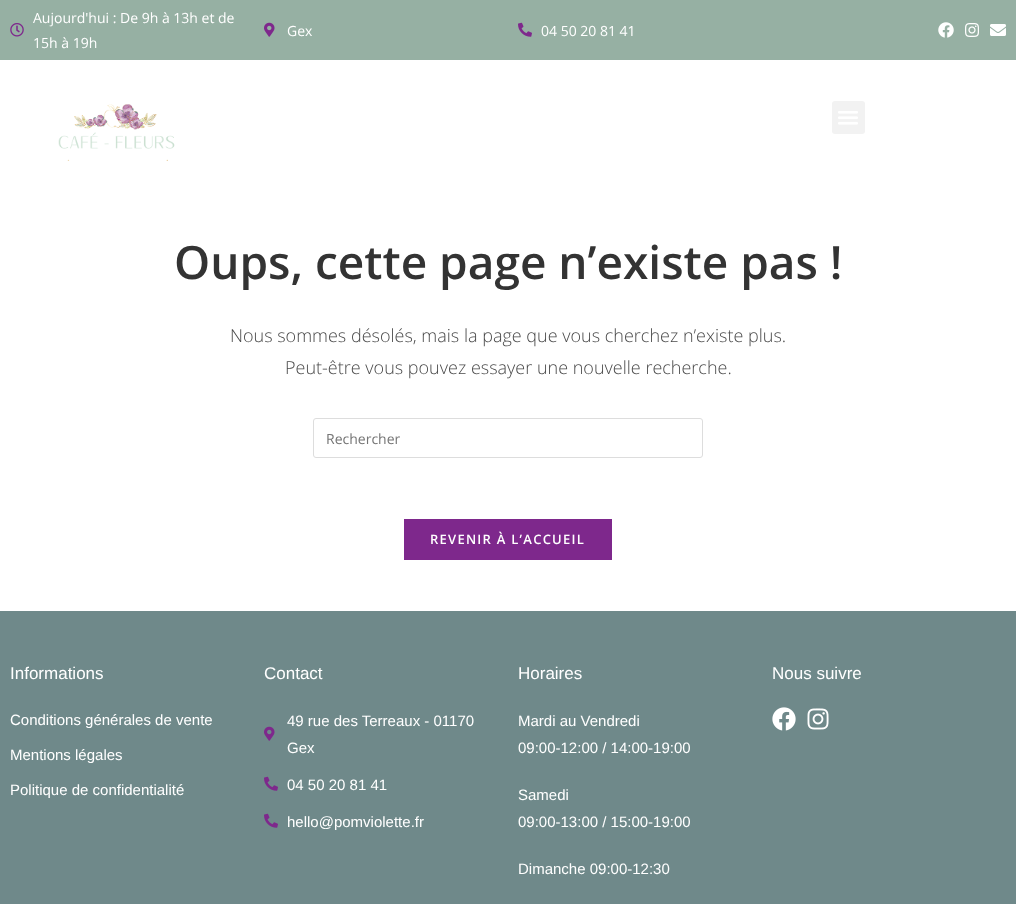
<svg xmlns="http://www.w3.org/2000/svg" width="1016" height="904">
<style>
.a{font:14px Open Sans;fill:#fff}
.b{font:600 46px Open Sans;fill:#333}
.c{font:300 18px Open Sans;fill:#4a4a4a}
.d{font:14px Open Sans;fill:#757575}
.e{font:600 13px Open Sans;letter-spacing:1.25px;fill:#fff}
.f{font:17px Liberation Sans;fill:#fff}
.g{font:15px Liberation Sans;fill:#fff}
</style>
<rect width="100%" height="100%" fill="#fff"/>
<path fill="#96b0a3" d="M0 0h1016v60H0z"/>
<image href="1.png" x="10" y="23" width="14" height="14"/>
<image href="2.png" x="264" y="22" width="11" height="15"/>
<image href="3.png" x="518" y="22" width="14" height="15"/>
<image href="4.png" x="938" y="22" width="16" height="16"/>
<image href="5.png" x="965" y="23" width="14" height="14"/>
<image href="6.png" x="990" y="24" width="16" height="12"/>
<image href="7.png" x="58" y="104" width="117" height="57"/>
<rect fill="#f2f2f2" x="832" y="101" width="33" height="33" rx="3"/>
<image href="8.png" x="838" y="111" width="20" height="14"/>
<rect fill="none" stroke="#ddd" x="313.5" y="418.5" width="389" height="39" rx="2.5"/>
<path fill="#7e288c" d="M404 519h208v41H404z"/>
<path fill="#6f898a" d="M0 611h1016v293H0z"/>
<image href="9.png" x="264" y="726" width="11" height="15"/>
<image href="10.png" x="264" y="776" width="14" height="15"/>
<image href="10.png" x="264" y="813" width="14" height="15"/>
<image href="11.png" x="772" y="707" width="24" height="24"/>
<image href="12.png" x="807" y="708" width="22" height="22"/>
<text class="a" x="33" y="23">Aujourd'hui : De 9h à 13h et de</text>
<text class="a" x="33" y="48">15h à 19h</text>
<text class="a" x="287" y="36">Gex</text>
<text class="a" x="541" y="36">04 50 20 81 41</text>
<text class="b" x="174" y="279">Oups, cette page n’existe pas !</text>
<text class="c" x="230" y="342">Nous sommes désolés, mais la page que vous cherchez n’existe plus.</text>
<text class="c" x="285" y="374">Peut-être vous pouvez essayer une nouvelle recherche.</text>
<text class="d" x="326" y="444">Rechercher</text>
<text class="e" x="430" y="544">REVENIR À L’ACCUEIL</text>
<text class="f" x="10" y="679">Informations</text>
<text class="g" x="10" y="725">Conditions générales de vente</text>
<text class="g" x="10" y="760">Mentions légales</text>
<text class="g" x="10" y="795">Politique de confidentialité</text>
<text class="f" x="264" y="679">Contact</text>
<text class="g" x="287" y="726">49 rue des Terreaux - 01170</text>
<text class="g" x="287" y="753">Gex</text>
<text class="g" x="287" y="790">04 50 20 81 41</text>
<text class="g" x="287" y="827">hello@pomviolette.fr</text>
<text class="f" x="518" y="679">Horaires</text>
<text class="g" x="518" y="726">Mardi au Vendredi</text>
<text class="g" x="518" y="753">09:00-12:00 / 14:00-19:00</text>
<text class="g" x="518" y="800">Samedi</text>
<text class="g" x="518" y="827">09:00-13:00 / 15:00-19:00</text>
<text class="g" x="518" y="874">Dimanche 09:00-12:30</text>
<text class="f" x="772" y="679">Nous suivre</text>
</svg>
